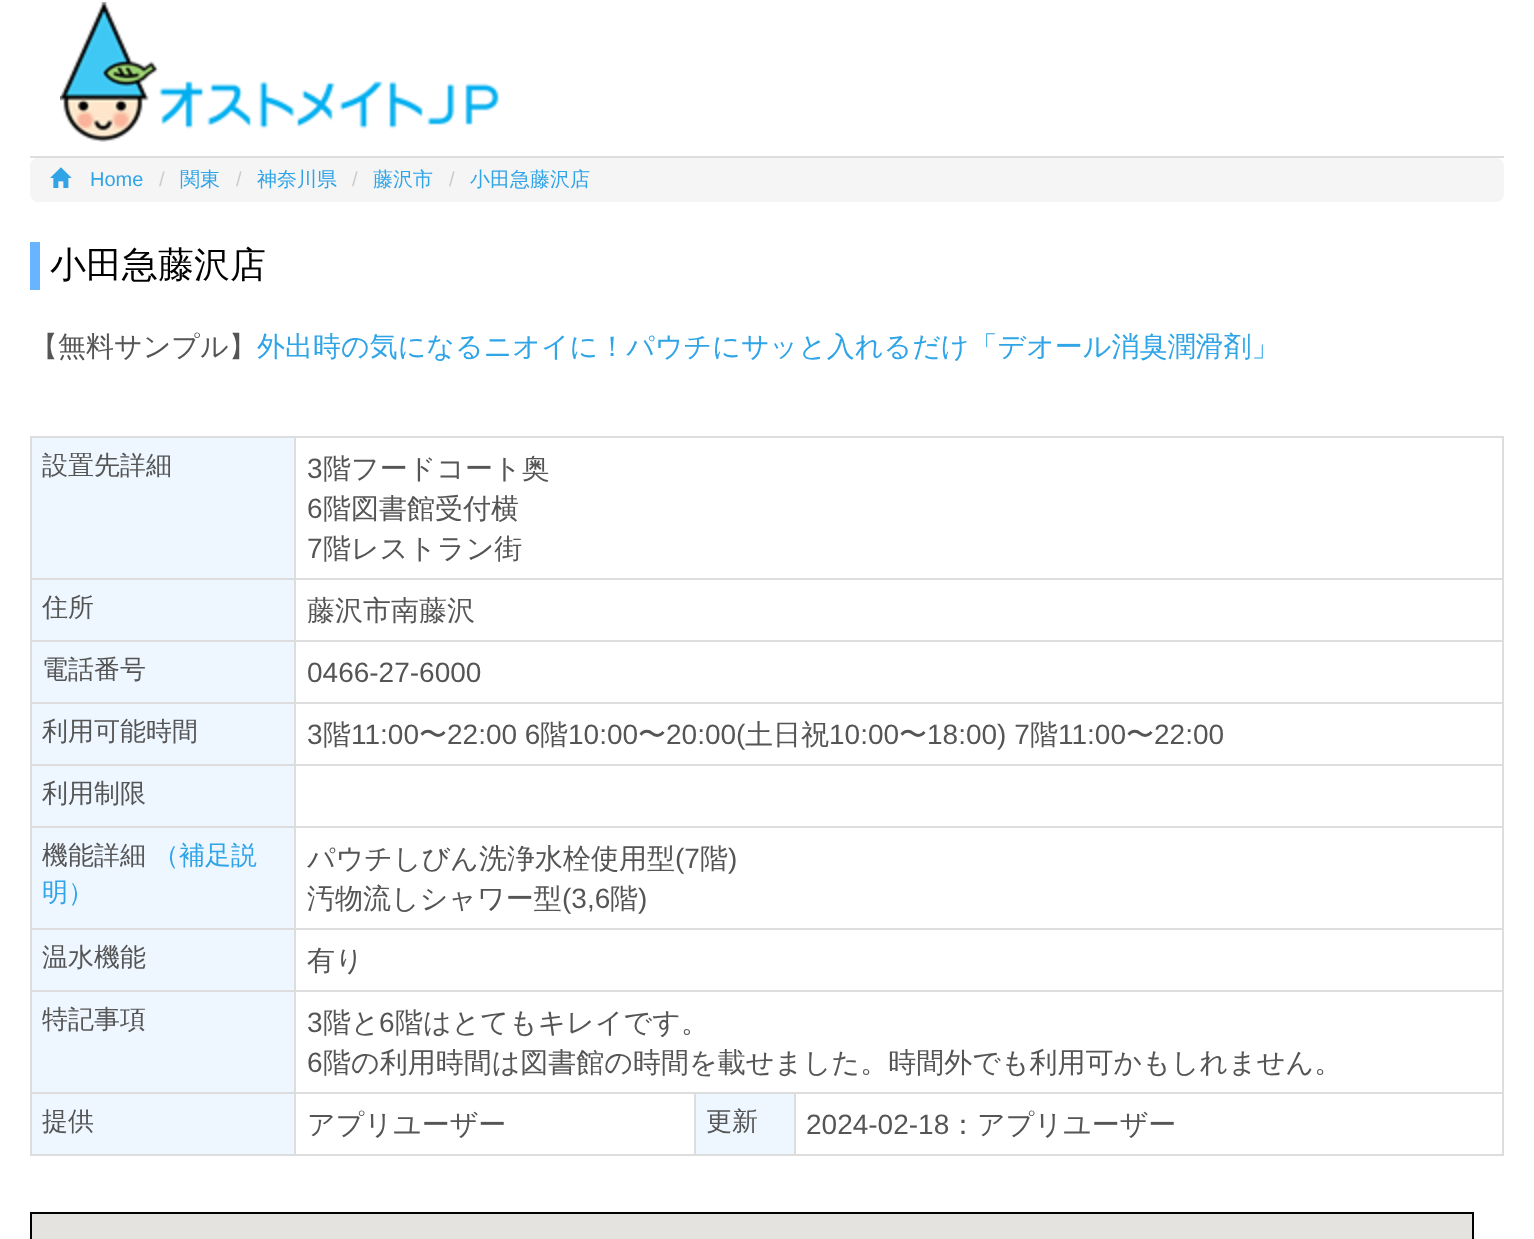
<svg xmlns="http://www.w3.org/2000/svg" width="1534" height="1239">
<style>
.a{font:20px Liberation Sans;fill:#2fa4e7}
.b{font:20px Liberation Sans;fill:#ccc}
.c{font:500 20px WenQuanYi Zen Hei;fill:#2fa4e7}
.d{font:500 36px WenQuanYi Zen Hei;fill:#000}
.e{font:500 28px WenQuanYi Zen Hei;fill:#555}
.f{font:500 28px WenQuanYi Zen Hei;fill:#2fa4e7}
.g{font:500 26px WenQuanYi Zen Hei;fill:#555}
.h{font:28px Liberation Sans;fill:#555}
.i{font:500 26px WenQuanYi Zen Hei;fill:#2fa4e7}
</style>
<rect width="100%" height="100%" fill="#fff"/>
<path fill="#ddd" d="M30 156h1474v2H30z"/>
<image href="1.png" x="60" y="2" width="440" height="140"/>
<rect fill="#f5f5f5" x="30" y="158" width="1474" height="44" rx="8"/>
<image href="2.png" x="50" y="167" width="22" height="21"/>
<path fill="#68b4ff" d="M30 242h10v48H30z"/>
<path fill="#ddd" d="M30 436h1474v2H30z"/>
<path fill="#ddd" d="M1502 436h2v720H1502z"/>
<path fill="#ddd" d="M30 1154h1474v2H30z"/>
<path fill="#ddd" d="M30 436h2v720H30z"/>
<path fill="#eef7ff" d="M32 438h262v140H32z"/>
<path fill="#ddd" d="M294 578h1210v2H294z"/>
<path fill="#ddd" d="M294 640h1210v2H294z"/>
<path fill="#ddd" d="M294 702h1210v2H294z"/>
<path fill="#ddd" d="M294 764h1210v2H294z"/>
<path fill="#ddd" d="M294 826h1210v2H294z"/>
<path fill="#ddd" d="M294 928h1210v2H294z"/>
<path fill="#ddd" d="M294 990h1210v2H294z"/>
<path fill="#ddd" d="M794 1092h710v2H794z"/>
<path fill="#ddd" d="M794 1092h2v64H794z"/>
<path fill="#ddd" d="M694 1092h102v2H694z"/>
<path fill="#ddd" d="M694 1092h2v64H694z"/>
<path fill="#ddd" d="M294 1092h402v2H294z"/>
<path fill="#ddd" d="M294 1092h2v64H294z"/>
<path fill="#ddd" d="M30 1092h266v2H30z"/>
<path fill="#ddd" d="M294 990h2v104H294z"/>
<path fill="#ddd" d="M30 990h266v2H30z"/>
<path fill="#ddd" d="M294 928h2v64H294z"/>
<path fill="#ddd" d="M30 928h266v2H30z"/>
<path fill="#ddd" d="M294 826h2v104H294z"/>
<path fill="#ddd" d="M30 826h266v2H30z"/>
<path fill="#ddd" d="M294 764h2v64H294z"/>
<path fill="#ddd" d="M30 764h266v2H30z"/>
<path fill="#ddd" d="M294 702h2v64H294z"/>
<path fill="#ddd" d="M30 702h266v2H30z"/>
<path fill="#ddd" d="M294 640h2v64H294z"/>
<path fill="#ddd" d="M30 640h266v2H30z"/>
<path fill="#ddd" d="M294 578h2v64H294z"/>
<path fill="#ddd" d="M30 578h266v2H30z"/>
<path fill="#ddd" d="M294 436h2v144H294z"/>
<path fill="#eef7ff" d="M32 580h262v60H32z"/>
<path fill="#eef7ff" d="M32 642h262v60H32z"/>
<path fill="#eef7ff" d="M32 704h262v60H32z"/>
<path fill="#eef7ff" d="M32 766h262v60H32z"/>
<path fill="#eef7ff" d="M32 828h262v100H32z"/>
<path fill="#eef7ff" d="M32 930h262v60H32z"/>
<path fill="#eef7ff" d="M32 992h262v100H32z"/>
<path fill="#eef7ff" d="M32 1094h262v60H32z"/>
<path fill="#eef7ff" d="M696 1094h98v60H696z"/>
<path fill="none" stroke="#000" stroke-width="2" d="M31 1213h1442v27H31z"/>
<path fill="#e5e3df" d="M32 1214h1440v25H32z"/>
<text class="a" x="90" y="186">Home</text>
<text class="b" x="159" y="186">/</text>
<text class="c" x="180" y="186">関東</text>
<text class="b" x="236" y="186">/</text>
<text class="c" x="257" y="186">神奈川県</text>
<text class="b" x="352" y="186">/</text>
<text class="c" x="373" y="186">藤沢市</text>
<text class="b" x="449" y="186">/</text>
<text class="c" x="470" y="186">小田急藤沢店</text>
<text class="d" x="50" y="277">小田急藤沢店</text>
<text class="e" x="30" y="356">【無料サンプル】</text>
<text class="f" x="257" y="356">外出時の気になるニオイに！パウチにサッと入れるだけ「デオール消臭潤滑剤」</text>
<text class="g" x="42" y="474">設置先詳細</text>
<text class="h" x="307" y="478">3</text>
<text class="e" x="323" y="478">階フードコート奥</text>
<text class="h" x="307" y="518">6</text>
<text class="e" x="323" y="518">階図書館受付横</text>
<text class="h" x="307" y="558">7</text>
<text class="e" x="323" y="558">階レストラン街</text>
<text class="g" x="42" y="616">住所</text>
<text class="e" x="307" y="620">藤沢市南藤沢</text>
<text class="g" x="42" y="678">電話番号</text>
<text class="h" x="307" y="682">0466-27-6000</text>
<text class="g" x="42" y="740">利用可能時間</text>
<text class="h" x="307" y="744">3</text>
<text class="e" x="323" y="744">階</text>
<text class="h" x="351" y="744">11:00</text>
<text class="e" x="419" y="744">〜</text>
<text class="h" x="447" y="744">22:00 6</text>
<text class="e" x="540" y="744">階</text>
<text class="h" x="568" y="744">10:00</text>
<text class="e" x="638" y="744">〜</text>
<text class="h" x="666" y="744">20:00(</text>
<text class="e" x="745" y="744">土日祝</text>
<text class="h" x="829" y="744">10:00</text>
<text class="e" x="899" y="744">〜</text>
<text class="h" x="927" y="744">18:00) 7</text>
<text class="e" x="1030" y="744">階</text>
<text class="h" x="1058" y="744">11:00</text>
<text class="e" x="1126" y="744">〜</text>
<text class="h" x="1154" y="744">22:00</text>
<text class="g" x="42" y="802">利用制限</text>
<text class="g" x="42" y="864">機能詳細</text>
<text class="i" x="153" y="864">（補足説</text>
<text class="i" x="42" y="901">明）</text>
<text class="e" x="307" y="868">パウチしびん洗浄水栓使用型</text>
<text class="h" x="675" y="868">(7</text>
<text class="e" x="700" y="868">階</text>
<text class="h" x="728" y="868">)</text>
<text class="e" x="307" y="908">汚物流しシャワー型</text>
<text class="h" x="562" y="908">(3,6</text>
<text class="e" x="610" y="908">階</text>
<text class="h" x="638" y="908">)</text>
<text class="g" x="42" y="966">温水機能</text>
<text class="e" x="307" y="970">有り</text>
<text class="g" x="42" y="1028">特記事項</text>
<text class="h" x="307" y="1032">3</text>
<text class="e" x="323" y="1032">階と</text>
<text class="h" x="379" y="1032">6</text>
<text class="e" x="395" y="1032">階はとてもキレイです。</text>
<text class="h" x="307" y="1072">6</text>
<text class="e" x="323" y="1072">階の利用時間は図書館の時間を載せました。時間外でも利用可かもしれません。</text>
<text class="g" x="42" y="1130">提供</text>
<text class="e" x="307" y="1134">アプリユーザー</text>
<text class="g" x="706" y="1130">更新</text>
<text class="h" x="806" y="1134">2024-02-18</text>
<text class="e" x="949" y="1134">：アプリユーザー</text>
</svg>
